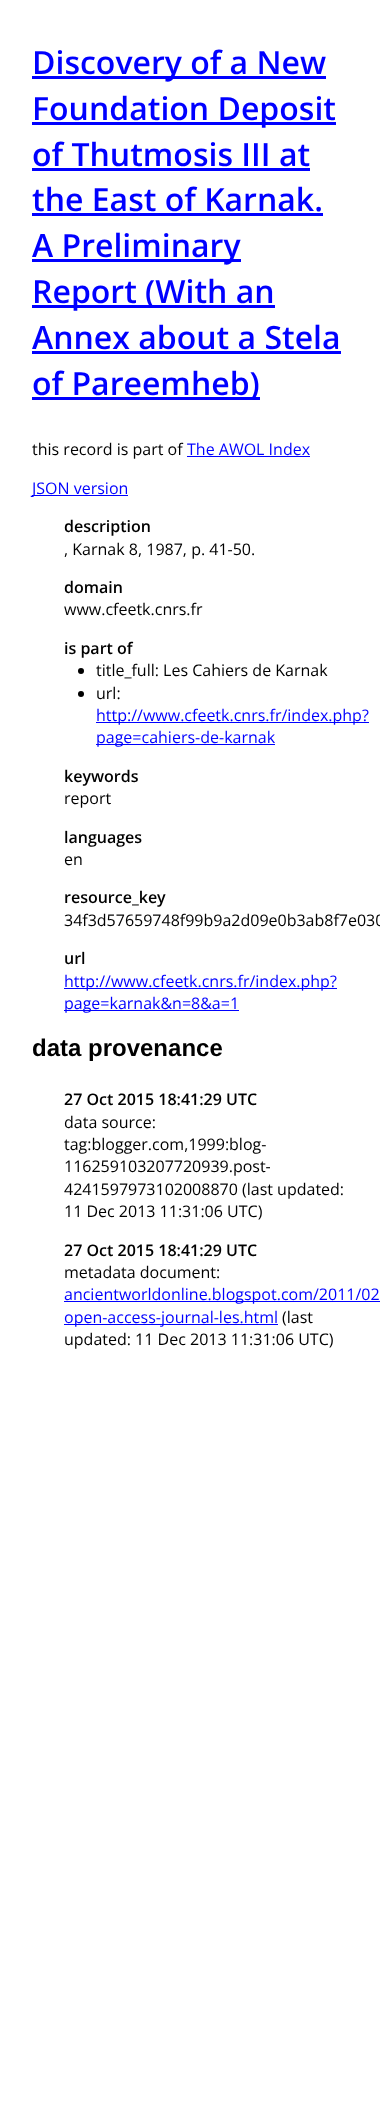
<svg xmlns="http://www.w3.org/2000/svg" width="380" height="2124">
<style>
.a{font:600 32px Open Sans;fill:#00f}
.b{font:16px Open Sans;fill:#000}
.c{font:16px Open Sans;fill:#00f}
.d{font:600 16px Open Sans;fill:#000}
.e{font:bold 24px Liberation Sans;fill:#000}
</style>
<rect width="100%" height="100%" fill="#fff"/>
<path fill="#00f" d="M32 76h294v3H32z"/>
<path fill="#00f" d="M32 122h304v3H32z"/>
<path fill="#00f" d="M32 168h278v3H32z"/>
<path fill="#00f" d="M32 213h291v3H32z"/>
<path fill="#00f" d="M32 259h209v3H32z"/>
<path fill="#00f" d="M32 305h243v3H32z"/>
<path fill="#00f" d="M32 351h309v3H32z"/>
<path fill="#00f" d="M32 397h228v3H32z"/>
<path fill="#00f" d="M187 456h123v1H187z"/>
<path fill="#00f" d="M32 495h96v1H32z"/>
<circle fill="#000" cx="81" cy="671" r="3"/>
<circle fill="#000" cx="81" cy="694" r="3"/>
<path fill="#00f" d="M96 722h273v1H96z"/>
<path fill="#00f" d="M96 744h179v1H96z"/>
<path fill="#00f" d="M64 988h273v1H64z"/>
<path fill="#00f" d="M64 1010h175v1H64z"/>
<path fill="#00f" d="M64 1301h316v1H64z"/>
<path fill="#00f" d="M64 1324h214v1H64z"/>
<text class="a" x="32" y="74">Discovery of a New</text>
<text class="a" x="32" y="120">Foundation Deposit</text>
<text class="a" x="32" y="166">of Thutmosis III at</text>
<text class="a" x="32" y="211">the East of Karnak.</text>
<text class="a" x="32" y="257">A Preliminary</text>
<text class="a" x="32" y="303">Report (With an</text>
<text class="a" x="32" y="349">Annex about a Stela</text>
<text class="a" x="32" y="395">of Pareemheb)</text>
<text class="b" x="32" y="455">this record is part of</text>
<text class="c" x="187" y="455">The AWOL Index</text>
<text class="c" x="32" y="494">JSON version</text>
<text class="d" x="64" y="532">description</text>
<text class="b" x="64" y="555">, Karnak 8, 1987, p. 41-50.</text>
<text class="d" x="64" y="593">domain</text>
<text class="b" x="64" y="615">www.cfeetk.cnrs.fr</text>
<text class="d" x="64" y="654">is part of</text>
<text class="b" x="96" y="676">title_full: Les Cahiers de Karnak</text>
<text class="b" x="96" y="699">url:</text>
<text class="c" x="96" y="721">http://www.cfeetk.cnrs.fr/index.php?</text>
<text class="c" x="96" y="743">page=cahiers-de-karnak</text>
<text class="d" x="64" y="782">keywords</text>
<text class="b" x="64" y="804">report</text>
<text class="d" x="64" y="843">languages</text>
<text class="b" x="64" y="865">en</text>
<text class="d" x="64" y="903">resource_key</text>
<text class="b" x="64" y="926">34f3d57659748f99b9a2d09e0b3ab8f7e030</text>
<text class="d" x="64" y="964">url</text>
<text class="c" x="64" y="987">http://www.cfeetk.cnrs.fr/index.php?</text>
<text class="c" x="64" y="1009">page=karnak&amp;n=8&amp;a=1</text>
<text class="e" x="32" y="1056">data provenance</text>
<text class="d" x="64" y="1105">27 Oct 2015 18:41:29 UTC</text>
<text class="b" x="64" y="1128">data source:</text>
<text class="b" x="64" y="1150">tag:blogger.com,1999:blog-</text>
<text class="b" x="64" y="1172">116259103207720939.post-</text>
<text class="b" x="64" y="1195">4241597973102008870 (last updated:</text>
<text class="b" x="64" y="1217">11 Dec 2013 11:31:06 UTC)</text>
<text class="d" x="64" y="1256">27 Oct 2015 18:41:29 UTC</text>
<text class="b" x="64" y="1278">metadata document:</text>
<text class="c" x="64" y="1300">ancientworldonline.blogspot.com/2011/02</text>
<text class="c" x="64" y="1323">open-access-journal-les.html</text>
<text class="b" x="282" y="1323">(last</text>
<text class="b" x="64" y="1345">updated: 11 Dec 2013 11:31:06 UTC)</text>
</svg>
